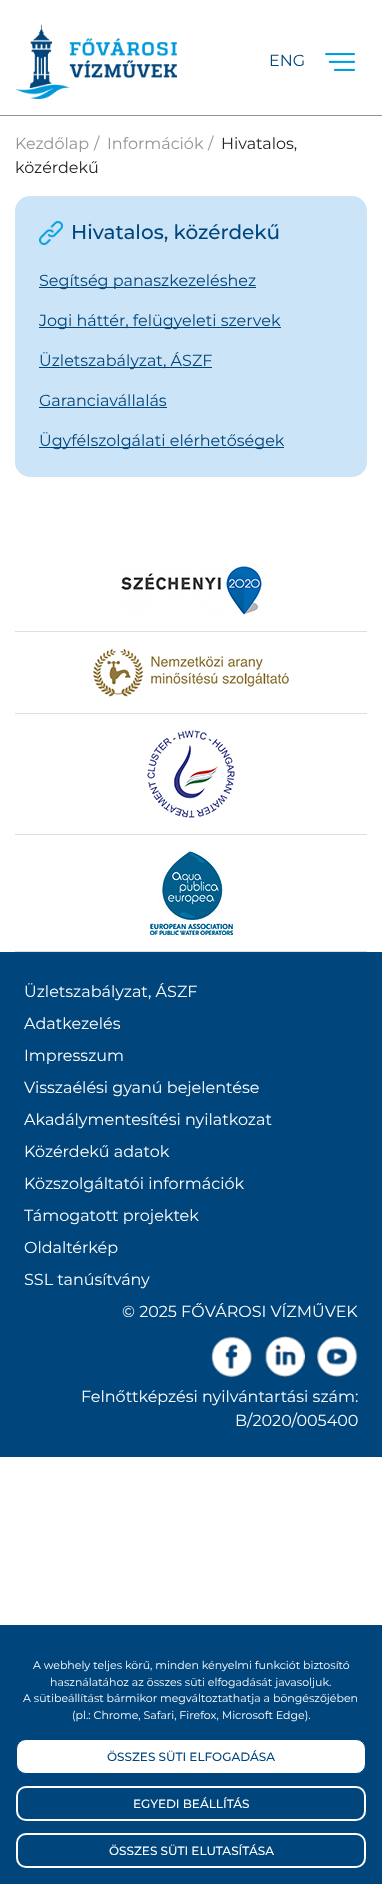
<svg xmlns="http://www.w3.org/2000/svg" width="382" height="1884">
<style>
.a{font:16px Montserrat;fill:#00467d}
.b{font:16px Montserrat;fill:#949494}
.c{font:16px Montserrat;fill:#212529}
.d{font:500 20px Montserrat;fill:#00467d}
.e{font:16px Montserrat;fill:#fff}
.f{font:11px Montserrat;fill:#fff}
.g{font:500 12px Montserrat;fill:#00467d}
.h{font:500 12px Montserrat;fill:#fff}
</style>
<rect width="100%" height="100%" fill="#fff"/>
<path fill="#949494" d="M0 115h382v1H0z"/>
<image href="1.png" x="15" y="24" width="162" height="75"/>
<image href="2.png" x="325" y="53" width="30" height="18"/>
<rect fill="#cce4f7" x="15" y="196" width="352" height="281" rx="15"/>
<image href="3.png" x="39" y="221" width="24" height="24"/>
<path fill="#00467d" d="M39 287h217v1H39z"/>
<path fill="#00467d" d="M39 327h242v1H39z"/>
<path fill="#00467d" d="M39 367h173v1H39z"/>
<path fill="#00467d" d="M39 407h128v1H39z"/>
<path fill="#00467d" d="M39 447h245v1H39z"/>
<path fill="#dfdfdf" d="M15 631h352v1H15z"/>
<image href="4.png" x="121" y="566" width="141" height="49"/>
<path fill="#dfdfdf" d="M15 713h352v1H15z"/>
<image href="5.png" x="93" y="649" width="196" height="48"/>
<path fill="#dfdfdf" d="M15 834h352v1H15z"/>
<image href="6.png" x="147" y="730" width="88" height="88"/>
<path fill="#dfdfdf" d="M15 951h352v1H15z"/>
<image href="7.png" x="150" y="851" width="83" height="84"/>
<path fill="#00467d" d="M0 952h382v505H0z"/>
<image href="8.png" x="211" y="1336" width="41" height="41"/>
<image href="9.png" x="265" y="1336" width="40" height="41"/>
<image href="10.png" x="317" y="1336" width="41" height="41"/>
<path fill="#00467d" d="M0 1625h382v259H0z"/>
<rect fill="#fff" stroke="#00467d" x="16.5" y="1739.5" width="349" height="34" rx="9.5"/>
<rect fill="none" stroke="#fff" stroke-width="2" x="17" y="1787" width="348" height="33" rx="9"/>
<rect fill="none" stroke="#fff" stroke-width="2" x="17" y="1834" width="348" height="33" rx="9"/>
<text class="a" x="269" y="66">ENG</text>
<text class="b" x="15" y="149">Kezdőlap</text>
<text class="b" x="94" y="149">/</text>
<text class="b" x="107" y="149">Információk</text>
<text class="b" x="208" y="149">/</text>
<text class="c" x="221" y="149">Hivatalos,</text>
<text class="c" x="15" y="173">közérdekű</text>
<text class="d" x="71" y="239">Hivatalos, közérdekű</text>
<text class="a" x="39" y="286">Segítség panaszkezeléshez</text>
<text class="a" x="39" y="326">Jogi háttér, felügyeleti szervek</text>
<text class="a" x="39" y="366">Üzletszabályzat, ÁSZF</text>
<text class="a" x="39" y="406">Garanciavállalás</text>
<text class="a" x="39" y="446">Ügyfélszolgálati elérhetőségek</text>
<text class="e" x="24" y="997">Üzletszabályzat, ÁSZF</text>
<text class="e" x="24" y="1029">Adatkezelés</text>
<text class="e" x="24" y="1061">Impresszum</text>
<text class="e" x="24" y="1093">Visszaélési gyanú bejelentése</text>
<text class="e" x="24" y="1125">Akadálymentesítési nyilatkozat</text>
<text class="e" x="24" y="1157">Közérdekű adatok</text>
<text class="e" x="24" y="1189">Közszolgáltatói információk</text>
<text class="e" x="24" y="1221">Támogatott projektek</text>
<text class="e" x="24" y="1253">Oldaltérkép</text>
<text class="e" x="24" y="1285">SSL tanúsítvány</text>
<text class="e" x="122" y="1317">© 2025 FŐVÁROSI VÍZMŰVEK</text>
<text class="e" x="81" y="1402">Felnőttképzési nyilvántartási szám:</text>
<text class="e" x="235" y="1426">B/2020/005400</text>
<text class="f" x="33" y="1669">A webhely teljes körű, minden kényelmi funkciót biztosító</text>
<text class="f" x="50" y="1686">használatához az összes süti elfogadását javasoljuk.</text>
<text class="f" x="23" y="1702">A sütibeállítást bármikor megváltoztathatja a böngészőjében</text>
<text class="f" x="72" y="1719">(pl.: Chrome, Safari, Firefox, Microsoft Edge).</text>
<text class="g" x="107" y="1761">ÖSSZES SÜTI ELFOGADÁSA</text>
<text class="h" x="133" y="1808">EGYEDI BEÁLLÍTÁS</text>
<text class="h" x="109" y="1855">ÖSSZES SÜTI ELUTASÍTÁSA</text>
</svg>
